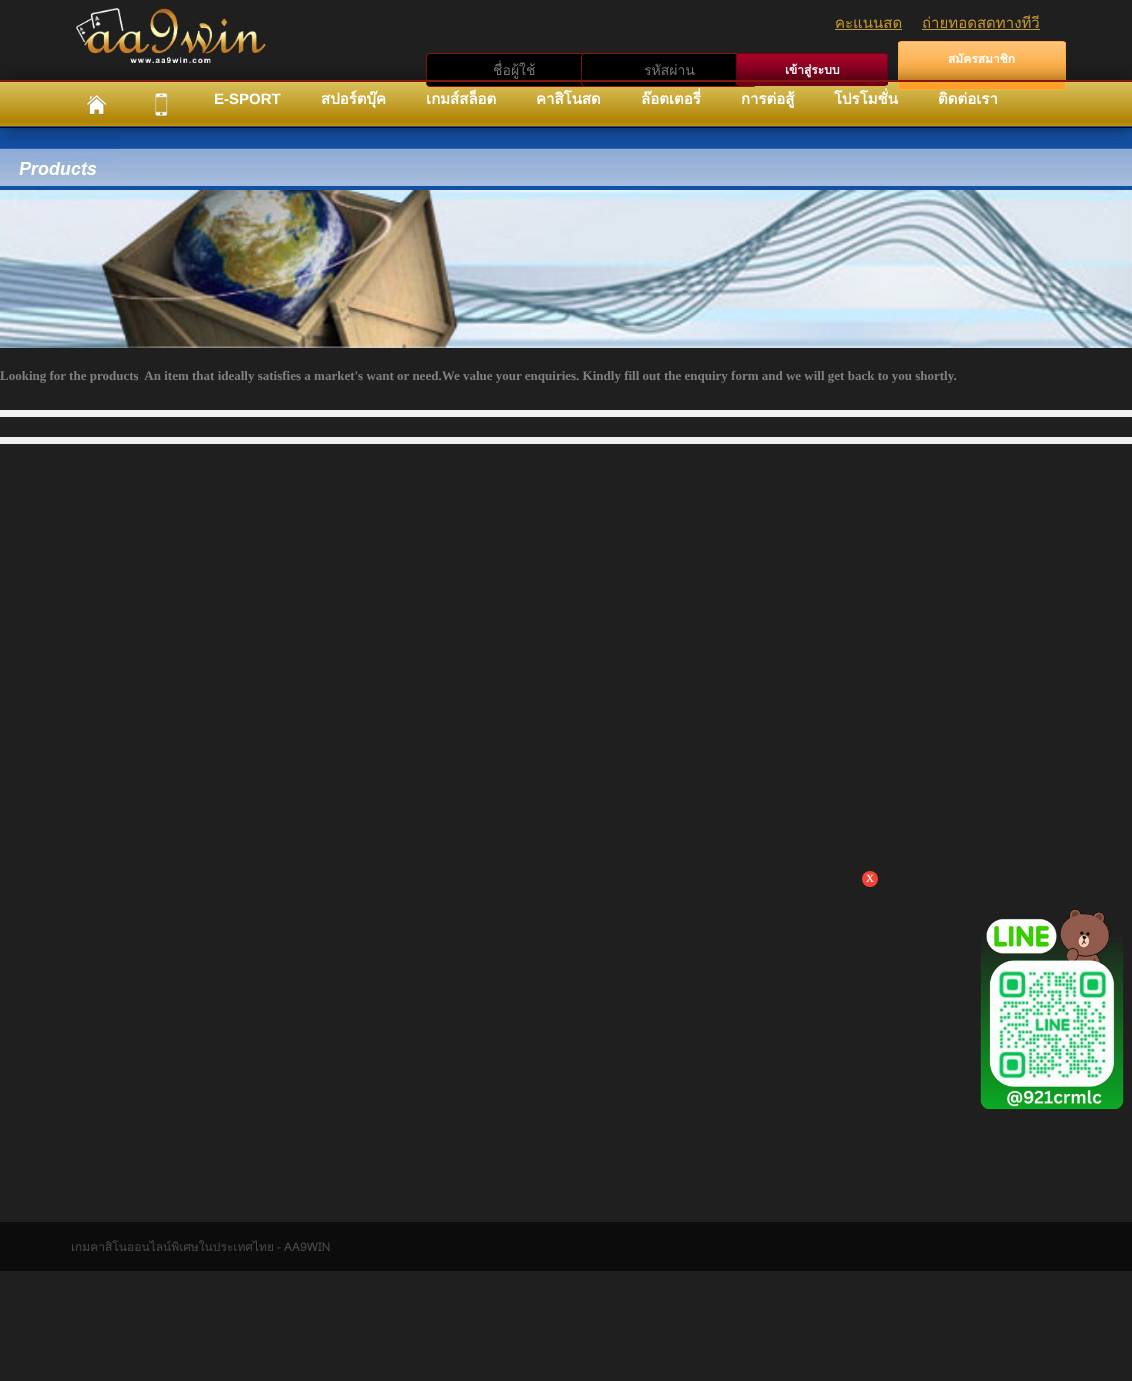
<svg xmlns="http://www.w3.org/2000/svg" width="1132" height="1381">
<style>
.a{font:15px Loma;fill:#c59932}
.b{font:bold 12px Loma;fill:#fff}
.c{font:14px Loma;fill:#757575}
.d{font:16px Liberation Serif;fill:#fff}
.e{font:bold 15px Liberation Sans;fill:#fff}
.f{font:bold 15px Loma;fill:#fff}
.g{font:bold 13px Liberation Serif;fill:#808080}
.h{font:12px Loma;fill:#4a4a4a}
</style>
<defs>
<clipPath id="clip1"><rect x="898" y="41" width="168" height="49" rx="3"/></clipPath>
<linearGradient id="g1" gradientUnits="userSpaceOnUse" x1="982" y1="42" x2="982" y2="89"><stop offset="0" stop-color="#ffc579"/><stop offset="1" stop-color="#fb9d23"/></linearGradient>
<clipPath id="clip2"><rect x="736" y="53" width="152" height="33" rx="3"/></clipPath>
<linearGradient id="g2" gradientUnits="userSpaceOnUse" x1="812" y1="54" x2="812" y2="85"><stop offset="0" stop-color="#a90329"/><stop offset="1" stop-color="#6d0019"/></linearGradient>
<clipPath id="clip3"><path d="M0 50h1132v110h-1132zm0 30h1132v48h-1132z" clip-rule="evenodd"/></clipPath>
</defs>
<rect width="100%" height="100%" fill="#1f1f1f"/>
<image href="1.png" x="0" y="82" width="1132" height="44"/>
<g clip-path="url(#clip1)">
<path fill="url(#g1)" d="M898 42h168v47H898z"/>
</g>
<rect fill="none" stroke="#ffad41" x="898.5" y="41.5" width="167" height="48" rx="2.5"/>
<rect fill="#000" stroke="#851711" x="426.5" y="53.5" width="175" height="33" rx="3.5"/>
<rect fill="#000" stroke="#851711" x="581.5" y="53.5" width="175" height="33" rx="3.5"/>
<g clip-path="url(#clip2)">
<path fill="url(#g2)" d="M736 54h152v31H736z"/>
</g>
<rect fill="none" stroke="#72021c" x="736.5" y="53.5" width="151" height="32" rx="2.5"/>
<image href="6.png" x="0" y="126" width="1132" height="64"/>
<image href="7.png" x="0" y="132" width="120" height="50"/>
<g clip-path="url(#clip3)">
<path fill="#00000080" filter="blur(10px)" d="M1 81h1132v48H1z"/>
</g>
<image href="2.png" x="76" y="8" width="190" height="55"/>
<path fill="#c59932" d="M835 29h67v1H835z"/>
<path fill="#c59932" d="M922 29h118v1H922z"/>
<circle fill="#f44336" cx="870" cy="879" r="8"/>
<image href="3.png" x="980" y="908" width="144" height="202"/>
<path fill="#851711" d="M0 80h1132v2H0z"/>
<path fill="#000" d="M0 127h1132v1H0z"/>
<image href="4.png" x="86" y="94" width="21" height="21"/>
<image href="5.png" x="155" y="92" width="13" height="25"/>
<image href="8.png" x="0" y="190" width="1132" height="158"/>
<path fill="#efefef" d="M0 410h1132v7H0z"/>
<path fill="#efefef" d="M0 437h1132v7H0z"/>
<path fill="#0c0c0c" d="M0 1222h1132v49H0z"/>
<text class="a" x="835" y="28">คะแนนสด</text>
<text class="a" x="922" y="28">ถ่ายทอดสดทางทีวี</text>
<text class="b" x="948" y="63">สมัครสมาชิก</text>
<text class="c" x="493" y="75">ชื่อผู้ใช้</text>
<text class="c" x="644" y="75">รหัสผ่าน</text>
<text class="b" x="785" y="74">เข้าสู่ระบบ</text>
<text class="d" x="866" y="882">x</text>
<text class="e" x="214" y="104">E-SPORT</text>
<text class="f" x="321" y="104">สปอร์ตบุ๊ค</text>
<text class="f" x="426" y="104">เกมส์สล็อต</text>
<text class="f" x="536" y="104">คาสิโนสด</text>
<text class="f" x="641" y="104">ล๊อตเตอรี่</text>
<text class="f" x="741" y="104">การต่อสู้</text>
<text class="f" x="834" y="104">โปรโมชั่น</text>
<text class="f" x="938" y="104">ติดต่อเรา</text>
<text class="g" xml:space="preserve" x="0" y="380">Looking for the products  An item that ideally satisfies a market's want or need.We value your enquiries. Kindly fill out the enquiry form and we will get back to you shortly.</text>
<text class="h" x="71" y="1251" word-spacing="-1">เกมคาสิโนออนไลน์พิเศษในประเทศไทย - AA9WIN</text>
</svg>
